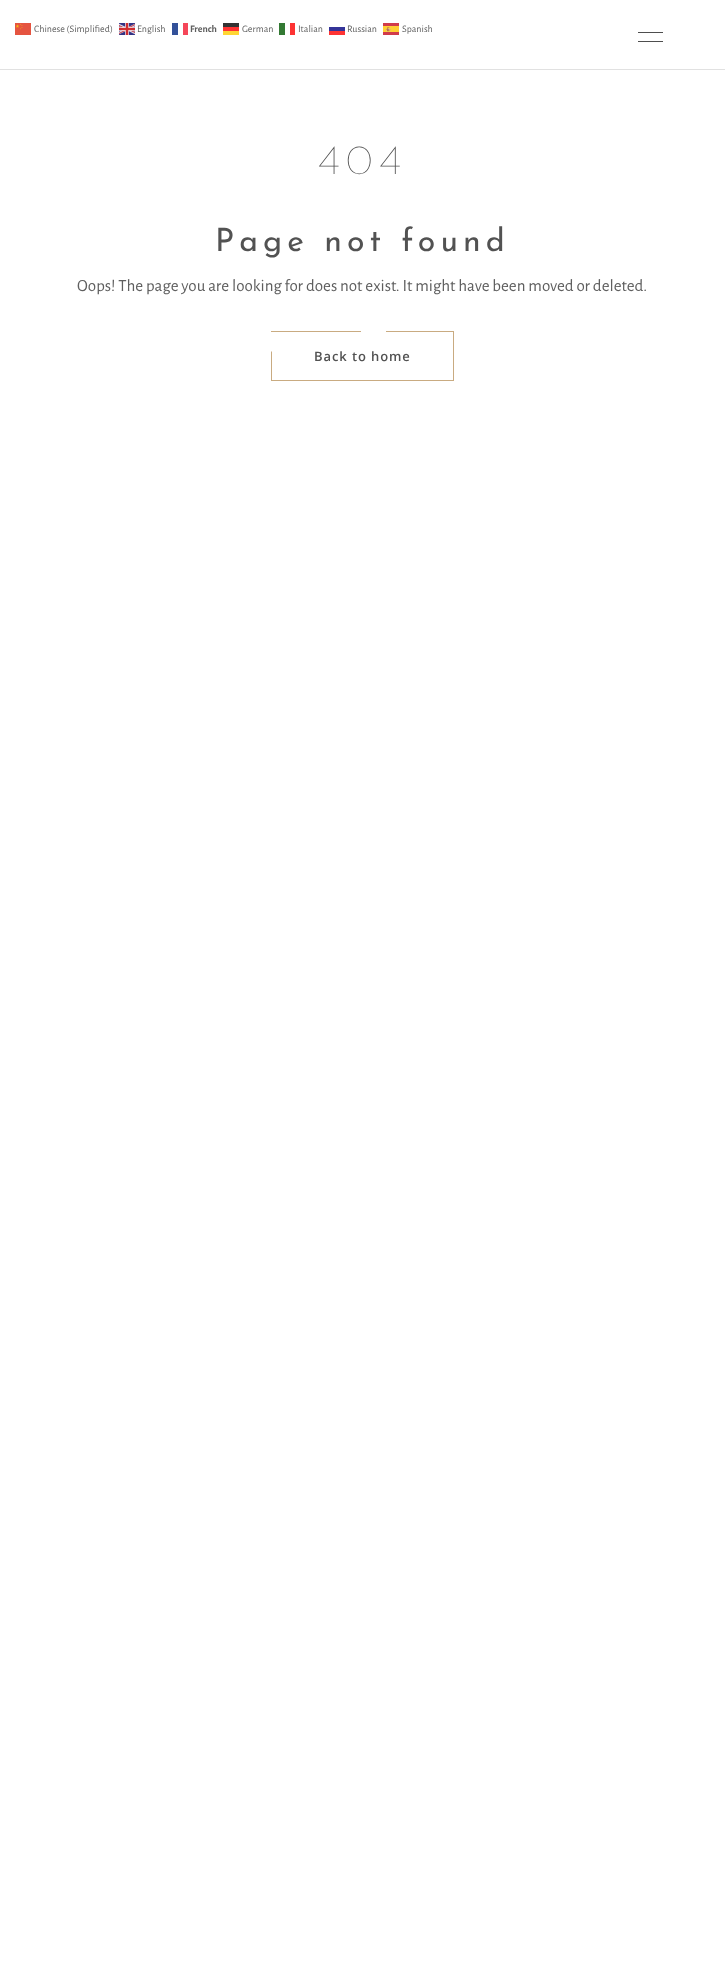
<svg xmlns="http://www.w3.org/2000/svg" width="725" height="1966">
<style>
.a{font:10px Alegreya Sans;fill:#5f5f5f}
.b{font:bold 10px Alegreya Sans;fill:#5f5f5f}
.c{font:100 42px Josefin Sans;letter-spacing:7px;fill:#525252}
.d{font:32px Josefin Sans;letter-spacing:5.1px;fill:#525252}
.e{font:17px Alegreya Sans;fill:#5f5f5f}
.f{font:600 13px Open Sans;letter-spacing:0.9px;fill:#525252}
</style>
<defs>
<clipPath id="clip1"><path d="M271 331h183v50H271z"/></clipPath>
</defs>
<rect width="100%" height="100%" fill="#fff"/>
<image href="1.png" x="15" y="23" width="16" height="12"/>
<image href="2.png" x="119" y="23" width="16" height="12"/>
<path fill="#335199" d="M172 23h6v12H172z"/>
<path fill="#f54659" d="M183 23h5v12H183z"/>
<path fill="#ffd633" d="M223 31h16v4H223z"/>
<path fill="#333" d="M223 23h16v4H223z"/>
<path fill="#f33" d="M223 27h16v4H223z"/>
<path fill="#337933" d="M279 23h6v12H279z"/>
<path fill="#fd3333" d="M290 23h5v12H290z"/>
<path fill="#343498" d="M329 27h16v4H329z"/>
<path fill="#fe3434" d="M329 31h16v4H329z"/>
<image href="3.png" x="383" y="23" width="16" height="12"/>
<path fill="#e1e1e1" d="M0 69h725v1H0z"/>
<path fill="#4e4e4e" d="M638 32h25v1H638z"/>
<path fill="#4e4e4e" d="M638 41h25v1H638z"/>
<text class="a" x="34" y="32">Chinese (Simplified)</text>
<text class="a" x="137" y="32">English</text>
<text class="b" x="190" y="32">French</text>
<text class="a" x="242" y="32">German</text>
<text class="a" x="298" y="32">Italian</text>
<text class="a" x="347" y="32">Russian</text>
<text class="a" x="402" y="32">Spanish</text>
<text class="c" x="318" y="174">404</text>
<text class="d" x="215" y="251">Page not found</text>
<text class="e" x="77" y="291">Oops! The page you are looking for does not exist. It might have been moved or deleted.</text>
<text class="f" x="314" y="361">Back to home</text>
<g clip-path="url(#clip1)">
<path fill="none" stroke="#c9ab81" stroke-width="2" d="M271 331h90m25 0h68v50h-183v-29.5"/>
</g>
</svg>
